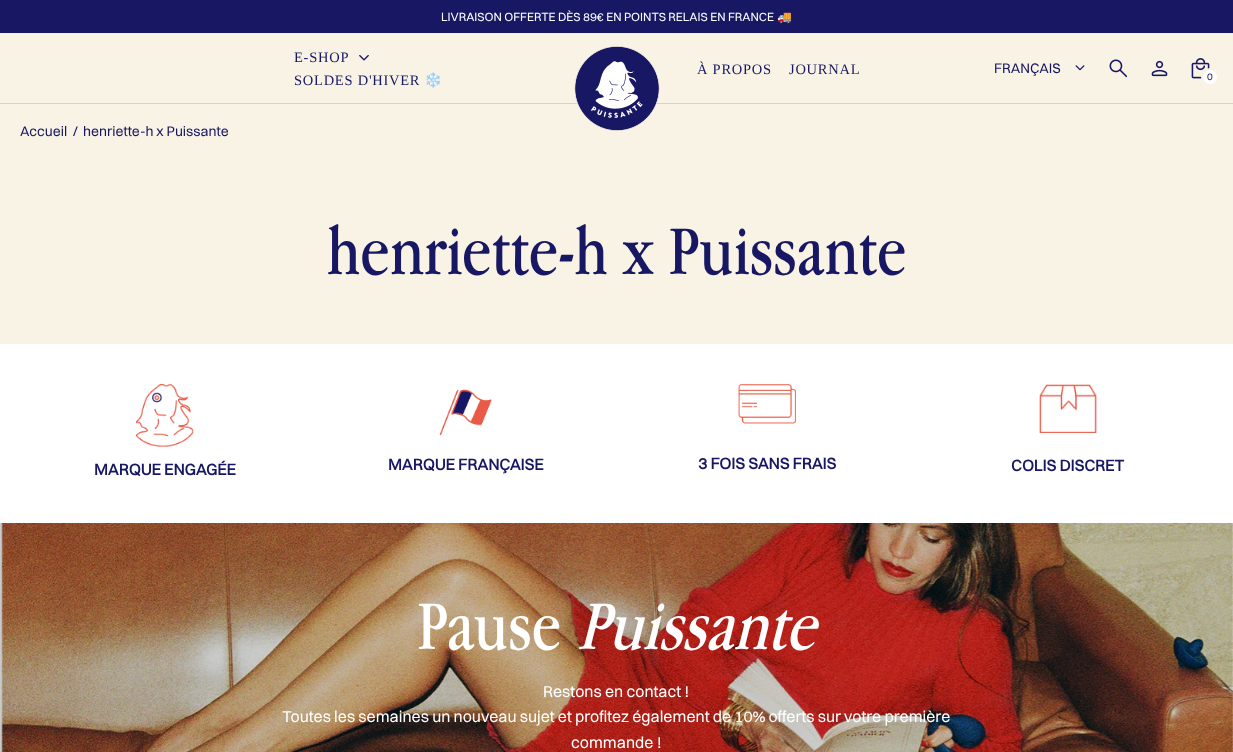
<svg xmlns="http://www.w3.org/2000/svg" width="1233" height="752">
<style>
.a{font:12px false;fill:#fff}
.b{font:12px Noto Color Emoji;fill:#fff}
.c{font:14.5px Liberation Serif;letter-spacing:0.75px;fill:#171763}
.d{font:14.5px Noto Color Emoji;letter-spacing:0.75px;fill:#171763}
.e{font:14px false;fill:#171763}
.f{font:10px false;fill:#171763}
.g{font:72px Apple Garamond;fill:#171763}
.h{font:bold 16px false;fill:#171763}
.i{font:72px Apple Garamond;fill:#fff}
.j{font:italic 72px Apple Garamond;fill:#fff}
.k{font:16px false;fill:#fff}
</style>
<rect width="100%" height="100%" fill="#f9f3e5"/>
<path fill="#171763" d="M0 0h1233v33H0z"/>
<path fill="#d7d2d2" d="M0 103h1233v1H0z"/>
<image href="1.png" x="359" y="55" width="10" height="6"/>
<image href="2.png" x="574" y="46" width="86" height="85"/>
<image href="3.png" x="1075" y="65" width="10" height="6"/>
<image href="4.png" x="1109" y="59" width="19" height="19"/>
<image href="5.png" x="1151" y="60" width="17" height="17"/>
<image href="6.png" x="1191" y="58" width="19" height="21"/>
<circle fill="#f9f3e5" cx="1210" cy="77" r="9"/>
<circle fill="#fff" cx="1210" cy="77" r="7"/>
<path fill="#fff" d="M0 344h1233v179H0z"/>
<image href="7.png" x="136" y="384" width="58" height="63"/>
<image href="8.png" x="439" y="389" width="53" height="47"/>
<image href="9.png" x="738" y="384" width="58" height="40"/>
<image href="10.png" x="1039" y="384" width="58" height="49"/>
<image href="11.png" x="0" y="523" width="1233" height="229"/>
<text class="a" x="441" y="21">LIVRAISON OFFERTE DÈS 89€ EN POINTS RELAIS EN FRANCE</text>
<text class="b" x="777" y="21">🚚</text>
<text class="c" x="294" y="62">E-SHOP</text>
<text class="c" x="294" y="85">SOLDES D'HIVER</text>
<text class="d" x="424" y="85">❄️</text>
<text class="c" x="697" y="74">À PROPOS</text>
<text class="c" x="789" y="74">JOURNAL</text>
<text class="e" x="994" y="73">FRANÇAIS</text>
<text class="f" x="1207" y="80">0</text>
<text class="e" x="20" y="136">Accueil</text>
<text class="e" x="73" y="136">/</text>
<text class="e" x="83" y="136">henriette-h x Puissante</text>
<text class="g" x="327" y="274">henriette-h x Puissante</text>
<text class="h" x="94" y="475">MARQUE ENGAGÉE</text>
<text class="h" x="388" y="470">MARQUE FRANÇAISE</text>
<text class="h" x="698" y="469">3 FOIS SANS FRAIS</text>
<text class="h" x="1011" y="471">COLIS DISCRET</text>
<text class="i" x="417" y="649">Pause</text>
<text class="j" x="577" y="649">Puissante</text>
<text class="k" x="543" y="697">Restons en contact !</text>
<text class="k" x="282" y="722">Toutes les semaines un nouveau sujet et profitez également de 10% offerts sur votre première</text>
<text class="k" x="571" y="748">commande !</text>
</svg>
